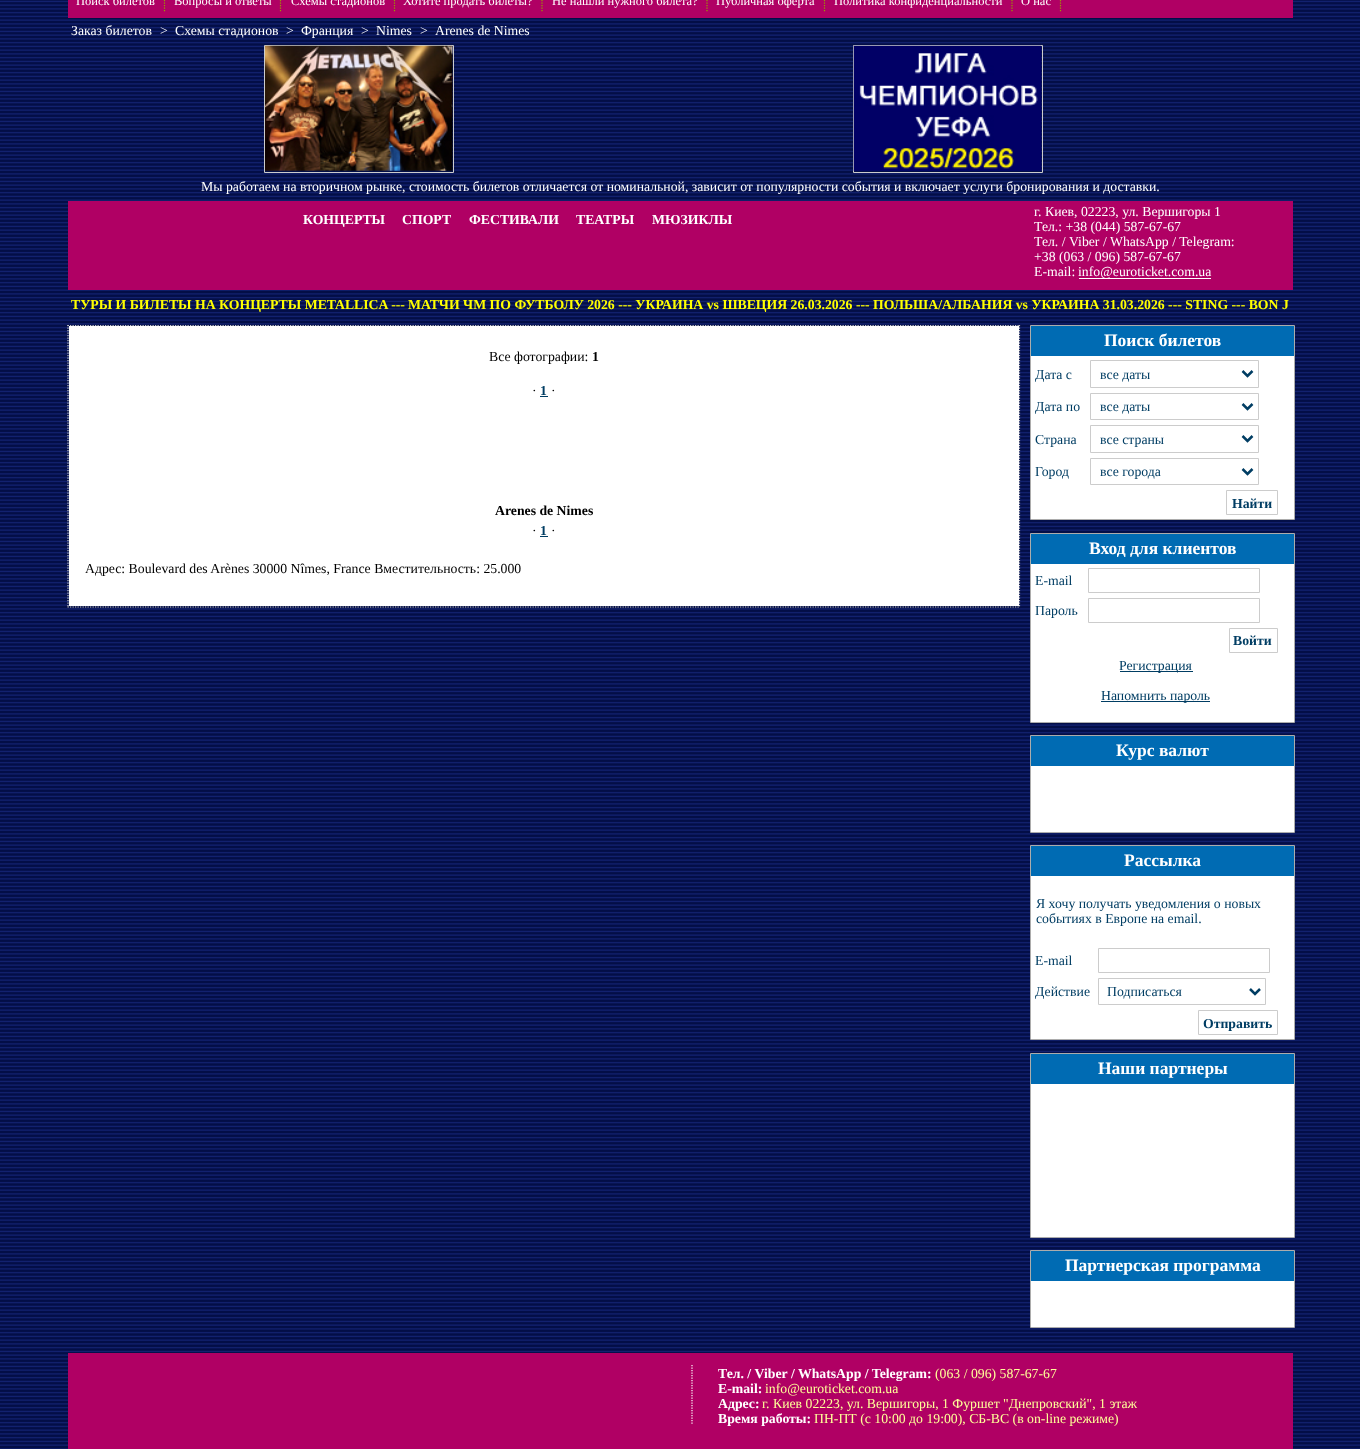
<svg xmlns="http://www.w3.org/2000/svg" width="1360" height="1449">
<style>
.a{font:12.5px Liberation Serif;fill:#fff}
.b{font:13.75px Liberation Serif;fill:#fff}
.c{font:bold 13.75px Liberation Serif;fill:#fff}
.d{font:bold 13.75px Liberation Serif;fill:#ff0}
.e{font:13.75px Liberation Serif;fill:#000}
.f{font:bold 13.75px Liberation Serif;fill:#000}
.g{font:bold 13.75px Liberation Serif;fill:#003d63}
.h{font:bold 17.5px Liberation Serif;fill:#fff}
.i{font:13.75px Liberation Serif;fill:#003d63}
.j{font:13.75px Liberation Serif;fill:#ff9}
</style>
<defs>
<clipPath id="clip1"><path d="M71 290h1219v35H71z"/></clipPath>
</defs>
<rect width="100%" height="100%" fill="#fff"/>
<image href="1.png" x="0" y="0" width="1360" height="1449"/>
<path fill="#b00064" d="M68 0h1225v18H68z"/>
<path fill="none" stroke="#9b9b01" stroke-width="1.2" stroke-dasharray="1.25 1.25" d="M164.5-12.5v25"/>
<path fill="none" stroke="#9b9b01" stroke-width="1.2" stroke-dasharray="1.25 1.25" d="M280.5-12.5v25"/>
<path fill="none" stroke="#9b9b01" stroke-width="1.2" stroke-dasharray="1.25 1.25" d="M394.5-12.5v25"/>
<path fill="none" stroke="#9b9b01" stroke-width="1.2" stroke-dasharray="1.25 1.25" d="M542-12.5v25"/>
<path fill="none" stroke="#9b9b01" stroke-width="1.2" stroke-dasharray="1.25 1.25" d="M707-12.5v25"/>
<path fill="none" stroke="#9b9b01" stroke-width="1.2" stroke-dasharray="1.25 1.25" d="M824.5-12.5v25"/>
<path fill="none" stroke="#9b9b01" stroke-width="1.2" stroke-dasharray="1.25 1.25" d="M1012-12.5v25"/>
<path fill="none" stroke="#9b9b01" stroke-width="1.2" stroke-dasharray="1.25 1.25" d="M1060.5-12.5v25"/>
<path fill="none" stroke="#ccc" d="M264.5 45.5h189v127H264.5z"/>
<image href="2.png" x="265" y="45" width="188" height="126"/>
<path fill="none" stroke="#ccc" d="M853.5 45.5h189v127H853.5z"/>
<image href="3.png" x="853" y="45" width="189" height="126"/>
<path fill="#b00064" d="M68 201h1225v89H68z"/>
<path fill="#fff" d="M1079 278h132v1H1079z"/>
<path fill="none" stroke="#ccc" stroke-width="1.2" stroke-dasharray="1.25 1.25" d="M67.5 325.5h952.5"/>
<path fill="none" stroke="#ccc" stroke-width="1.2" stroke-dasharray="1.25 1.25" d="M1019.5 325v282.5"/>
<path fill="none" stroke="#ccc" stroke-width="1.2" stroke-dasharray="1.25 1.25" d="M67.5 607h952.5"/>
<path fill="none" stroke="#ccc" stroke-width="1.2" stroke-dasharray="1.25 1.25" d="M68 325v282.5"/>
<path fill="#fff" d="M69 326h950v280H69z"/>
<path fill="#003d63" d="M540 396h8v1H540z"/>
<path fill="#003d63" d="M540 536h8v1H540z"/>
<path fill="#fff" d="M1031 356h263v163H1031z"/>
<path fill="none" stroke="#acacac" d="M1030.5 325.5h264v194H1030.5z"/>
<path fill="#006bb3" d="M1031 326h263v30H1031z"/>
<path fill="none" stroke="#ccc" d="M1090.5 360.5h168v27H1090.5z"/>
<path fill="none" stroke="#003d63" stroke-width="2.5" d="M1242.5 371l5 5l5-5"/>
<path fill="none" stroke="#ccc" d="M1090.5 393.5h168v26H1090.5z"/>
<path fill="none" stroke="#003d63" stroke-width="2.5" d="M1242.5 404l5 5l5-5"/>
<path fill="none" stroke="#ccc" d="M1090.5 425.5h168v27H1090.5z"/>
<path fill="none" stroke="#003d63" stroke-width="2.5" d="M1242.5 436l5 5l5-5"/>
<path fill="none" stroke="#ccc" d="M1090.5 458.5h168v26H1090.5z"/>
<path fill="none" stroke="#003d63" stroke-width="2.5" d="M1242.5 469l5 5l5-5"/>
<path fill="none" stroke="#ccc" d="M1226.5 490.5h51v24H1226.5z"/>
<path fill="#fff" d="M1031 564h263v158H1031z"/>
<path fill="none" stroke="#acacac" d="M1030.5 533.5h264v189H1030.5z"/>
<path fill="#006bb3" d="M1031 534h263v30H1031z"/>
<path fill="none" stroke="#ccc" d="M1088.5 568.5h171v24H1088.5z"/>
<path fill="none" stroke="#ccc" d="M1088.5 598.5h171v24H1088.5z"/>
<path fill="none" stroke="#ccc" d="M1229.5 628.5h48v24H1229.5z"/>
<path fill="#003d63" d="M1120 671h73v1H1120z"/>
<path fill="#003d63" d="M1101 701h109v1H1101z"/>
<path fill="#fff" d="M1031 766h263v66H1031z"/>
<path fill="none" stroke="#acacac" d="M1030.5 735.5h264v97H1030.5z"/>
<path fill="#006bb3" d="M1031 736h263v30H1031z"/>
<path fill="#fff" d="M1031 876h263v163H1031z"/>
<path fill="none" stroke="#acacac" d="M1030.5 845.5h264v194H1030.5z"/>
<path fill="#006bb3" d="M1031 846h263v30H1031z"/>
<path fill="none" stroke="#ccc" d="M1098.5 948.5h171v24H1098.5z"/>
<path fill="none" stroke="#ccc" d="M1098.5 978.5h167v26H1098.5z"/>
<path fill="none" stroke="#003d63" stroke-width="2.5" d="M1250 989l5 5l5-5"/>
<path fill="none" stroke="#ccc" d="M1198.5 1010.5h79v24H1198.5z"/>
<path fill="#fff" d="M1031 1084h263v153H1031z"/>
<path fill="none" stroke="#acacac" d="M1030.5 1053.5h264v184H1030.5z"/>
<path fill="#006bb3" d="M1031 1054h263v30H1031z"/>
<path fill="#fff" d="M1031 1281h263v46H1031z"/>
<path fill="none" stroke="#acacac" d="M1030.5 1250.5h264v77H1030.5z"/>
<path fill="#006bb3" d="M1031 1251h263v30H1031z"/>
<path fill="#b00064" d="M68 1353h1225v96H68z"/>
<path fill="none" stroke="#fff" stroke-width="1.2" stroke-dasharray="1.25 1.25" d="M692 1365v60"/>
<text class="a" x="76" y="5">Поиск билетов</text>
<text class="a" x="174" y="5">Вопросы и ответы</text>
<text class="a" x="291" y="5">Схемы стадионов</text>
<text class="a" x="403" y="5">Хотите продать билеты?</text>
<text class="a" x="552" y="5">Не нашли нужного билета?</text>
<text class="a" x="716" y="5">Публичная оферта</text>
<text class="a" x="834" y="5">Политика конфиденциальности</text>
<text class="a" x="1021" y="5">О нас</text>
<text class="b" x="71" y="35">Заказ билетов</text>
<text class="b" x="160" y="35">&gt;</text>
<text class="b" x="175" y="35">Схемы стадионов</text>
<text class="b" x="286" y="35">&gt;</text>
<text class="b" x="301" y="35">Франция</text>
<text class="b" x="361" y="35">&gt;</text>
<text class="b" x="376" y="35">Nimes</text>
<text class="b" x="420" y="35">&gt;</text>
<text class="b" x="435" y="35">Arenes de Nimes</text>
<text class="b" x="201" y="191">Мы работаем на вторичном рынке, стоимость билетов отличается от номинальной, зависит от популярности события и включает услуги бронирования и доставки.</text>
<text class="c" x="303" y="224">КОНЦЕРТЫ</text>
<text class="c" x="402" y="224">СПОРТ</text>
<text class="c" x="469" y="224">ФЕСТИВАЛИ</text>
<text class="c" x="576" y="224">ТЕАТРЫ</text>
<text class="c" x="652" y="224">МЮЗИКЛЫ</text>
<text class="b" x="1034" y="216">г. Киев, 02223, ул. Вершигоры 1</text>
<text class="b" x="1034" y="231">Тел.: +38 (044) 587-67-67</text>
<text class="b" x="1034" y="246">Тел. / Viber / WhatsApp / Telegram:</text>
<text class="b" x="1034" y="261">+38 (063 / 096) 587-67-67</text>
<text class="b" x="1034" y="276">E-mail:</text>
<text class="b" x="1078" y="276">info@euroticket.com.ua</text>
<g clip-path="url(#clip1)">
<text class="d" x="71" y="309">ТУРЫ И БИЛЕТЫ НА КОНЦЕРТЫ METALLICA ---</text>
</g>
<text class="d" x="408" y="309">МАТЧИ ЧМ ПО ФУТБОЛУ 2026 --- УКРАИНА vs ШВЕЦИЯ 26.03.2026 --- ПОЛЬША/АЛБАНИЯ vs УКРАИНА 31.03.2026 --- STING --- BON J</text>
<text class="e" x="489" y="361">Все фотографии:</text>
<text class="f" x="592" y="361">1</text>
<text class="e" x="532" y="395">·</text>
<text class="g" x="540" y="395">1</text>
<text class="e" x="551" y="395">·</text>
<text class="f" x="495" y="515">Arenes de Nimes</text>
<text class="e" x="532" y="535">·</text>
<text class="g" x="540" y="535">1</text>
<text class="e" x="551" y="535">·</text>
<text class="e" x="85" y="573">Адрес: Boulevard des Arènes 30000 Nîmes, France Вместительность: 25.000</text>
<text class="h" x="1104" y="346">Поиск билетов</text>
<text class="i" x="1035" y="379">Дата c</text>
<text class="i" x="1100" y="379">все даты</text>
<text class="i" x="1035" y="411">Дата по</text>
<text class="i" x="1100" y="411">все даты</text>
<text class="i" x="1035" y="444">Страна</text>
<text class="i" x="1100" y="444">все страны</text>
<text class="i" x="1035" y="476">Город</text>
<text class="i" x="1100" y="476">все города</text>
<text class="g" x="1232" y="508">Найти</text>
<text class="h" x="1089" y="554">Вход для клиентов</text>
<text class="i" x="1035" y="585">E-mail</text>
<text class="i" x="1035" y="615">Пароль</text>
<text class="g" x="1233" y="645">Войти</text>
<text class="i" x="1119" y="670">Регистрация</text>
<text class="i" x="1101" y="700">Напомнить пароль</text>
<text class="h" x="1116" y="756">Курс валют</text>
<text class="h" x="1124" y="866">Рассылка</text>
<text class="i" x="1036" y="908">Я хочу получать уведомления о новых</text>
<text class="i" x="1036" y="923">событиях в Европе на email.</text>
<text class="i" x="1035" y="965">E-mail</text>
<text class="i" x="1035" y="996">Действие</text>
<text class="i" x="1107" y="996">Подписаться</text>
<text class="g" x="1203" y="1028">Отправить</text>
<text class="h" x="1098" y="1074">Наши партнеры</text>
<text class="h" x="1065" y="1271">Партнерская программа</text>
<text class="c" x="718" y="1378">Тел. / Viber / WhatsApp / Telegram:</text>
<text class="j" x="935" y="1378">(063 / 096) 587-67-67</text>
<text class="c" x="718" y="1393">E-mail:</text>
<text class="j" x="765" y="1393">info@euroticket.com.ua</text>
<text class="c" x="718" y="1408">Адрес:</text>
<text class="j" x="762" y="1408">г. Киев 02223, ул. Вершигоры, 1 Фуршет "Днепровский", 1 этаж</text>
<text class="c" x="718" y="1423">Время работы:</text>
<text class="j" x="814" y="1423">ПН-ПТ (с 10:00 до 19:00), СБ-ВС (в on-line режиме)</text>
</svg>
